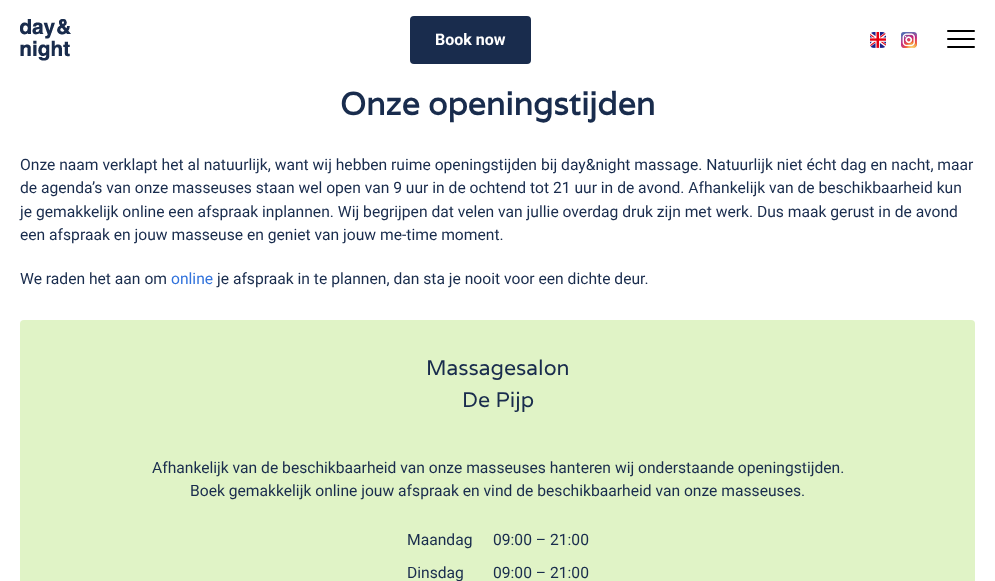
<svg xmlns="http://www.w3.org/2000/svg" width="995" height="581">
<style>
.a{font:bold 16px Roboto;fill:#fff}
.b{font:bold 32px Varela;fill:#192c4d}
.c{font:15.65px Roboto;fill:#192c4d}
.d{font:15.65px Roboto;fill:#3273dc}
.e{font:21.25px Varela;fill:#192c4d}
</style>
<rect width="100%" height="100%" fill="#fff"/>
<image href="1.png" x="20" y="19" width="51" height="42"/>
<rect fill="#192c4d" x="410" y="16" width="121" height="48" rx="4"/>
<image href="2.png" x="870" y="32" width="16" height="16"/>
<image href="3.png" x="901" y="32" width="16" height="16"/>
<rect fill="#000" x="947" y="46" width="28" height="2" rx="1"/>
<rect fill="#000" x="947" y="30" width="28" height="2" rx="1"/>
<rect fill="#000" x="947" y="38" width="28" height="2" rx="1"/>
<rect fill="#e0f3c6" x="20" y="320" width="955" height="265" rx="4"/>
<text class="a" x="435" y="45">Book now</text>
<text class="b" x="340" y="115">Onze openingstijden</text>
<text class="c" x="20" y="170">Onze naam verklapt het al natuurlijk, want wij hebben ruime openingstijden bij day&amp;night massage. Natuurlijk niet écht dag en nacht, maar</text>
<text class="c" x="20" y="193">de agenda’s van onze masseuses staan wel open van 9 uur in de ochtend tot 21 uur in de avond. Afhankelijk van de beschikbaarheid kun</text>
<text class="c" x="20" y="217">je gemakkelijk online een afspraak inplannen. Wij begrijpen dat velen van jullie overdag druk zijn met werk. Dus maak gerust in de avond</text>
<text class="c" x="20" y="240">een afspraak en jouw masseuse en geniet van jouw me-time moment.</text>
<text class="c" x="20" y="284">We raden het aan om</text>
<text class="d" x="171" y="284">online</text>
<text class="c" x="217" y="284">je afspraak in te plannen, dan sta je nooit voor een dichte deur.</text>
<text class="e" x="426" y="375">Massagesalon</text>
<text class="e" x="462" y="407">De Pijp</text>
<text class="c" x="152" y="473">Afhankelijk van de beschikbaarheid van onze masseuses hanteren wij onderstaande openingstijden.</text>
<text class="c" x="190" y="496">Boek gemakkelijk online jouw afspraak en vind de beschikbaarheid van onze masseuses.</text>
<text class="c" x="407" y="545">Maandag</text>
<text class="c" x="493" y="545">09:00 – 21:00</text>
<text class="c" x="407" y="578">Dinsdag</text>
<text class="c" x="493" y="578">09:00 – 21:00</text>
</svg>
